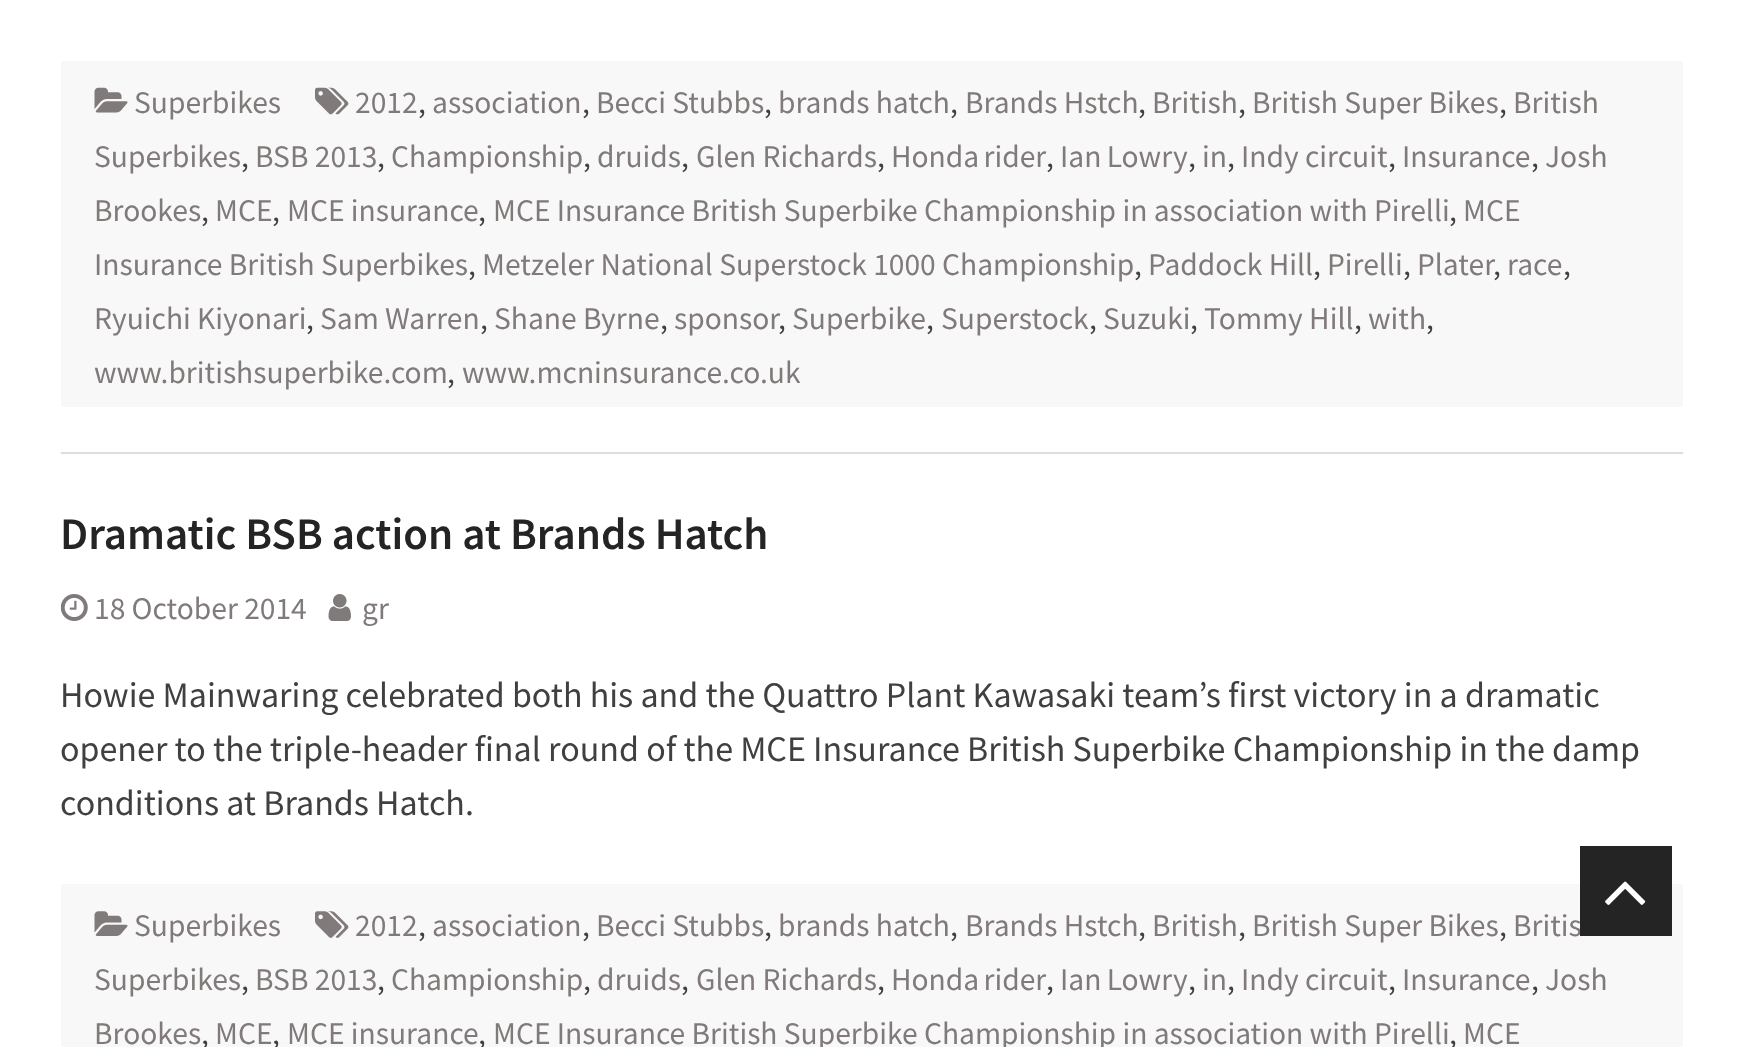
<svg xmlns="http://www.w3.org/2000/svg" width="1743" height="1047">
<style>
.a{font:31.5px Source Sans Pro;fill:#807a7a}
.b{font:31.5px Source Sans Pro;fill:#404040}
.c{font:600 45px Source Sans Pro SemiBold;fill:#242424}
.d{font:36px Source Sans Pro;fill:#404040}
</style>
<rect width="100%" height="100%" fill="#fff"/>
<path fill="#ddd" d="M61 452h1622v2H61z"/>
<path fill="#f9f8f8" d="M61 61h1622v346H61z"/>
<image href="1.png" x="315" y="87" width="34" height="28"/>
<image href="2.png" x="94" y="87" width="34" height="26"/>
<image href="3.png" x="61" y="594" width="27" height="27"/>
<image href="4.png" x="328" y="594" width="23" height="27"/>
<path fill="#f9f8f8" d="M61 884h1622v163H61z"/>
<image href="5.png" x="315" y="911" width="34" height="27"/>
<image href="6.png" x="94" y="911" width="34" height="25"/>
<text class="a" x="355" y="113">2012</text>
<text class="b" x="418" y="113">,</text>
<text class="a" x="432" y="113">association</text>
<text class="b" x="582" y="113">,</text>
<text class="a" x="596" y="113">Becci Stubbs</text>
<text class="b" x="764" y="113">,</text>
<text class="a" x="778" y="113">brands hatch</text>
<text class="b" x="950" y="113">,</text>
<text class="a" x="965" y="113">Brands Hstch</text>
<text class="b" x="1138" y="113">,</text>
<text class="a" x="1152" y="113">British</text>
<text class="b" x="1238" y="113">,</text>
<text class="a" x="1252" y="113">British Super Bikes</text>
<text class="b" x="1499" y="113">,</text>
<text class="a" x="1513" y="113">British</text>
<text class="a" x="94" y="167">Superbikes</text>
<text class="b" x="241" y="167">,</text>
<text class="a" x="255" y="167">BSB 2013</text>
<text class="b" x="377" y="167">,</text>
<text class="a" x="391" y="167">Championship</text>
<text class="b" x="583" y="167">,</text>
<text class="a" x="597" y="167">druids</text>
<text class="b" x="681" y="167">,</text>
<text class="a" x="696" y="167">Glen Richards</text>
<text class="b" x="877" y="167">,</text>
<text class="a" x="891" y="167" word-spacing="-2">Honda rider</text>
<text class="b" x="1046" y="167">,</text>
<text class="a" x="1060" y="167" word-spacing="-1">Ian Lowry</text>
<text class="b" x="1188" y="167">,</text>
<text class="a" x="1202" y="167">in</text>
<text class="b" x="1227" y="167">,</text>
<text class="a" x="1241" y="167">Indy circuit</text>
<text class="b" x="1388" y="167">,</text>
<text class="a" x="1402" y="167">Insurance</text>
<text class="b" x="1531" y="167">,</text>
<text class="a" x="1545" y="167">Josh</text>
<text class="a" x="94" y="221">Brookes</text>
<text class="b" x="201" y="221">,</text>
<text class="a" x="215" y="221">MCE</text>
<text class="b" x="272" y="221">,</text>
<text class="a" x="287" y="221">MCE insurance</text>
<text class="b" x="478" y="221">,</text>
<text class="a" x="493" y="221">MCE Insurance British Superbike Championship in association with Pirelli</text>
<text class="b" x="1449" y="221">,</text>
<text class="a" x="1463" y="221">MCE</text>
<text class="a" x="94" y="275">Insurance British Superbikes</text>
<text class="b" x="468" y="275">,</text>
<text class="a" x="482" y="275">Metzeler National Superstock 1000 Championship</text>
<text class="b" x="1134" y="275">,</text>
<text class="a" x="1148" y="275">Paddock Hill</text>
<text class="b" x="1313" y="275">,</text>
<text class="a" x="1327" y="275">Pirelli</text>
<text class="b" x="1403" y="275">,</text>
<text class="a" x="1417" y="275">Plater</text>
<text class="b" x="1493" y="275">,</text>
<text class="a" x="1507" y="275">race</text>
<text class="b" x="1563" y="275">,</text>
<text class="a" x="94" y="329">Ryuichi Kiyonari</text>
<text class="b" x="306" y="329">,</text>
<text class="a" x="320" y="329">Sam Warren</text>
<text class="b" x="480" y="329">,</text>
<text class="a" x="494" y="329">Shane Byrne</text>
<text class="b" x="660" y="329">,</text>
<text class="a" x="674" y="329">sponsor</text>
<text class="b" x="778" y="329">,</text>
<text class="a" x="792" y="329">Superbike</text>
<text class="b" x="926" y="329">,</text>
<text class="a" x="941" y="329">Superstock</text>
<text class="b" x="1089" y="329">,</text>
<text class="a" x="1103" y="329">Suzuki</text>
<text class="b" x="1190" y="329">,</text>
<text class="a" x="1204" y="329">Tommy Hill</text>
<text class="b" x="1354" y="329">,</text>
<text class="a" x="1368" y="329">with</text>
<text class="b" x="1426" y="329">,</text>
<text class="a" x="94" y="383">www.britishsuperbike.com</text>
<text class="b" x="447" y="383">,</text>
<text class="a" x="462" y="383">www.mcninsurance.co.uk</text>
<text class="a" x="134" y="113">Superbikes</text>
<text class="c" x="60" y="549">Dramatic BSB action at Brands Hatch</text>
<text class="a" x="94" y="619">18 October 2014</text>
<text class="a" x="362" y="619">gr</text>
<text class="d" x="60" y="707">Howie Mainwaring celebrated both his and the Quattro Plant Kawasaki team’s first victory in a dramatic</text>
<text class="d" x="60" y="761">opener to the triple-header final round of the MCE Insurance British Superbike Championship in the damp</text>
<text class="d" x="60" y="815">conditions at Brands Hatch.</text>
<text class="a" x="355" y="936">2012</text>
<text class="b" x="418" y="936">,</text>
<text class="a" x="432" y="936">association</text>
<text class="b" x="582" y="936">,</text>
<text class="a" x="596" y="936">Becci Stubbs</text>
<text class="b" x="764" y="936">,</text>
<text class="a" x="778" y="936">brands hatch</text>
<text class="b" x="950" y="936">,</text>
<text class="a" x="965" y="936">Brands Hstch</text>
<text class="b" x="1138" y="936">,</text>
<text class="a" x="1152" y="936">British</text>
<text class="b" x="1238" y="936">,</text>
<text class="a" x="1252" y="936">British Super Bikes</text>
<text class="b" x="1499" y="936">,</text>
<text class="a" x="1513" y="936">Britis</text>
<text class="a" x="94" y="990">Superbikes</text>
<text class="b" x="241" y="990">,</text>
<text class="a" x="255" y="990">BSB 2013</text>
<text class="b" x="377" y="990">,</text>
<text class="a" x="391" y="990">Championship</text>
<text class="b" x="583" y="990">,</text>
<text class="a" x="597" y="990">druids</text>
<text class="b" x="681" y="990">,</text>
<text class="a" x="696" y="990">Glen Richards</text>
<text class="b" x="877" y="990">,</text>
<text class="a" x="891" y="990" word-spacing="-2">Honda rider</text>
<text class="b" x="1046" y="990">,</text>
<text class="a" x="1060" y="990" word-spacing="-1">Ian Lowry</text>
<text class="b" x="1188" y="990">,</text>
<text class="a" x="1202" y="990">in</text>
<text class="b" x="1227" y="990">,</text>
<text class="a" x="1241" y="990">Indy circuit</text>
<text class="b" x="1388" y="990">,</text>
<text class="a" x="1402" y="990">Insurance</text>
<text class="b" x="1531" y="990">,</text>
<text class="a" x="1545" y="990">Josh</text>
<text class="a" x="94" y="1044">Brookes</text>
<text class="b" x="201" y="1044">,</text>
<text class="a" x="215" y="1044">MCE</text>
<text class="b" x="272" y="1044">,</text>
<text class="a" x="287" y="1044">MCE insurance</text>
<text class="b" x="478" y="1044">,</text>
<text class="a" x="493" y="1044">MCE Insurance British Superbike Championship in association with Pirelli</text>
<text class="b" x="1449" y="1044">,</text>
<text class="a" x="1463" y="1044">MCE</text>
<text class="a" x="134" y="936">Superbikes</text>
<path fill="#242424" d="M1580 846h92v90H1580z"/>
<image href="7.png" x="1605" y="881" width="41" height="24"/>
</svg>
